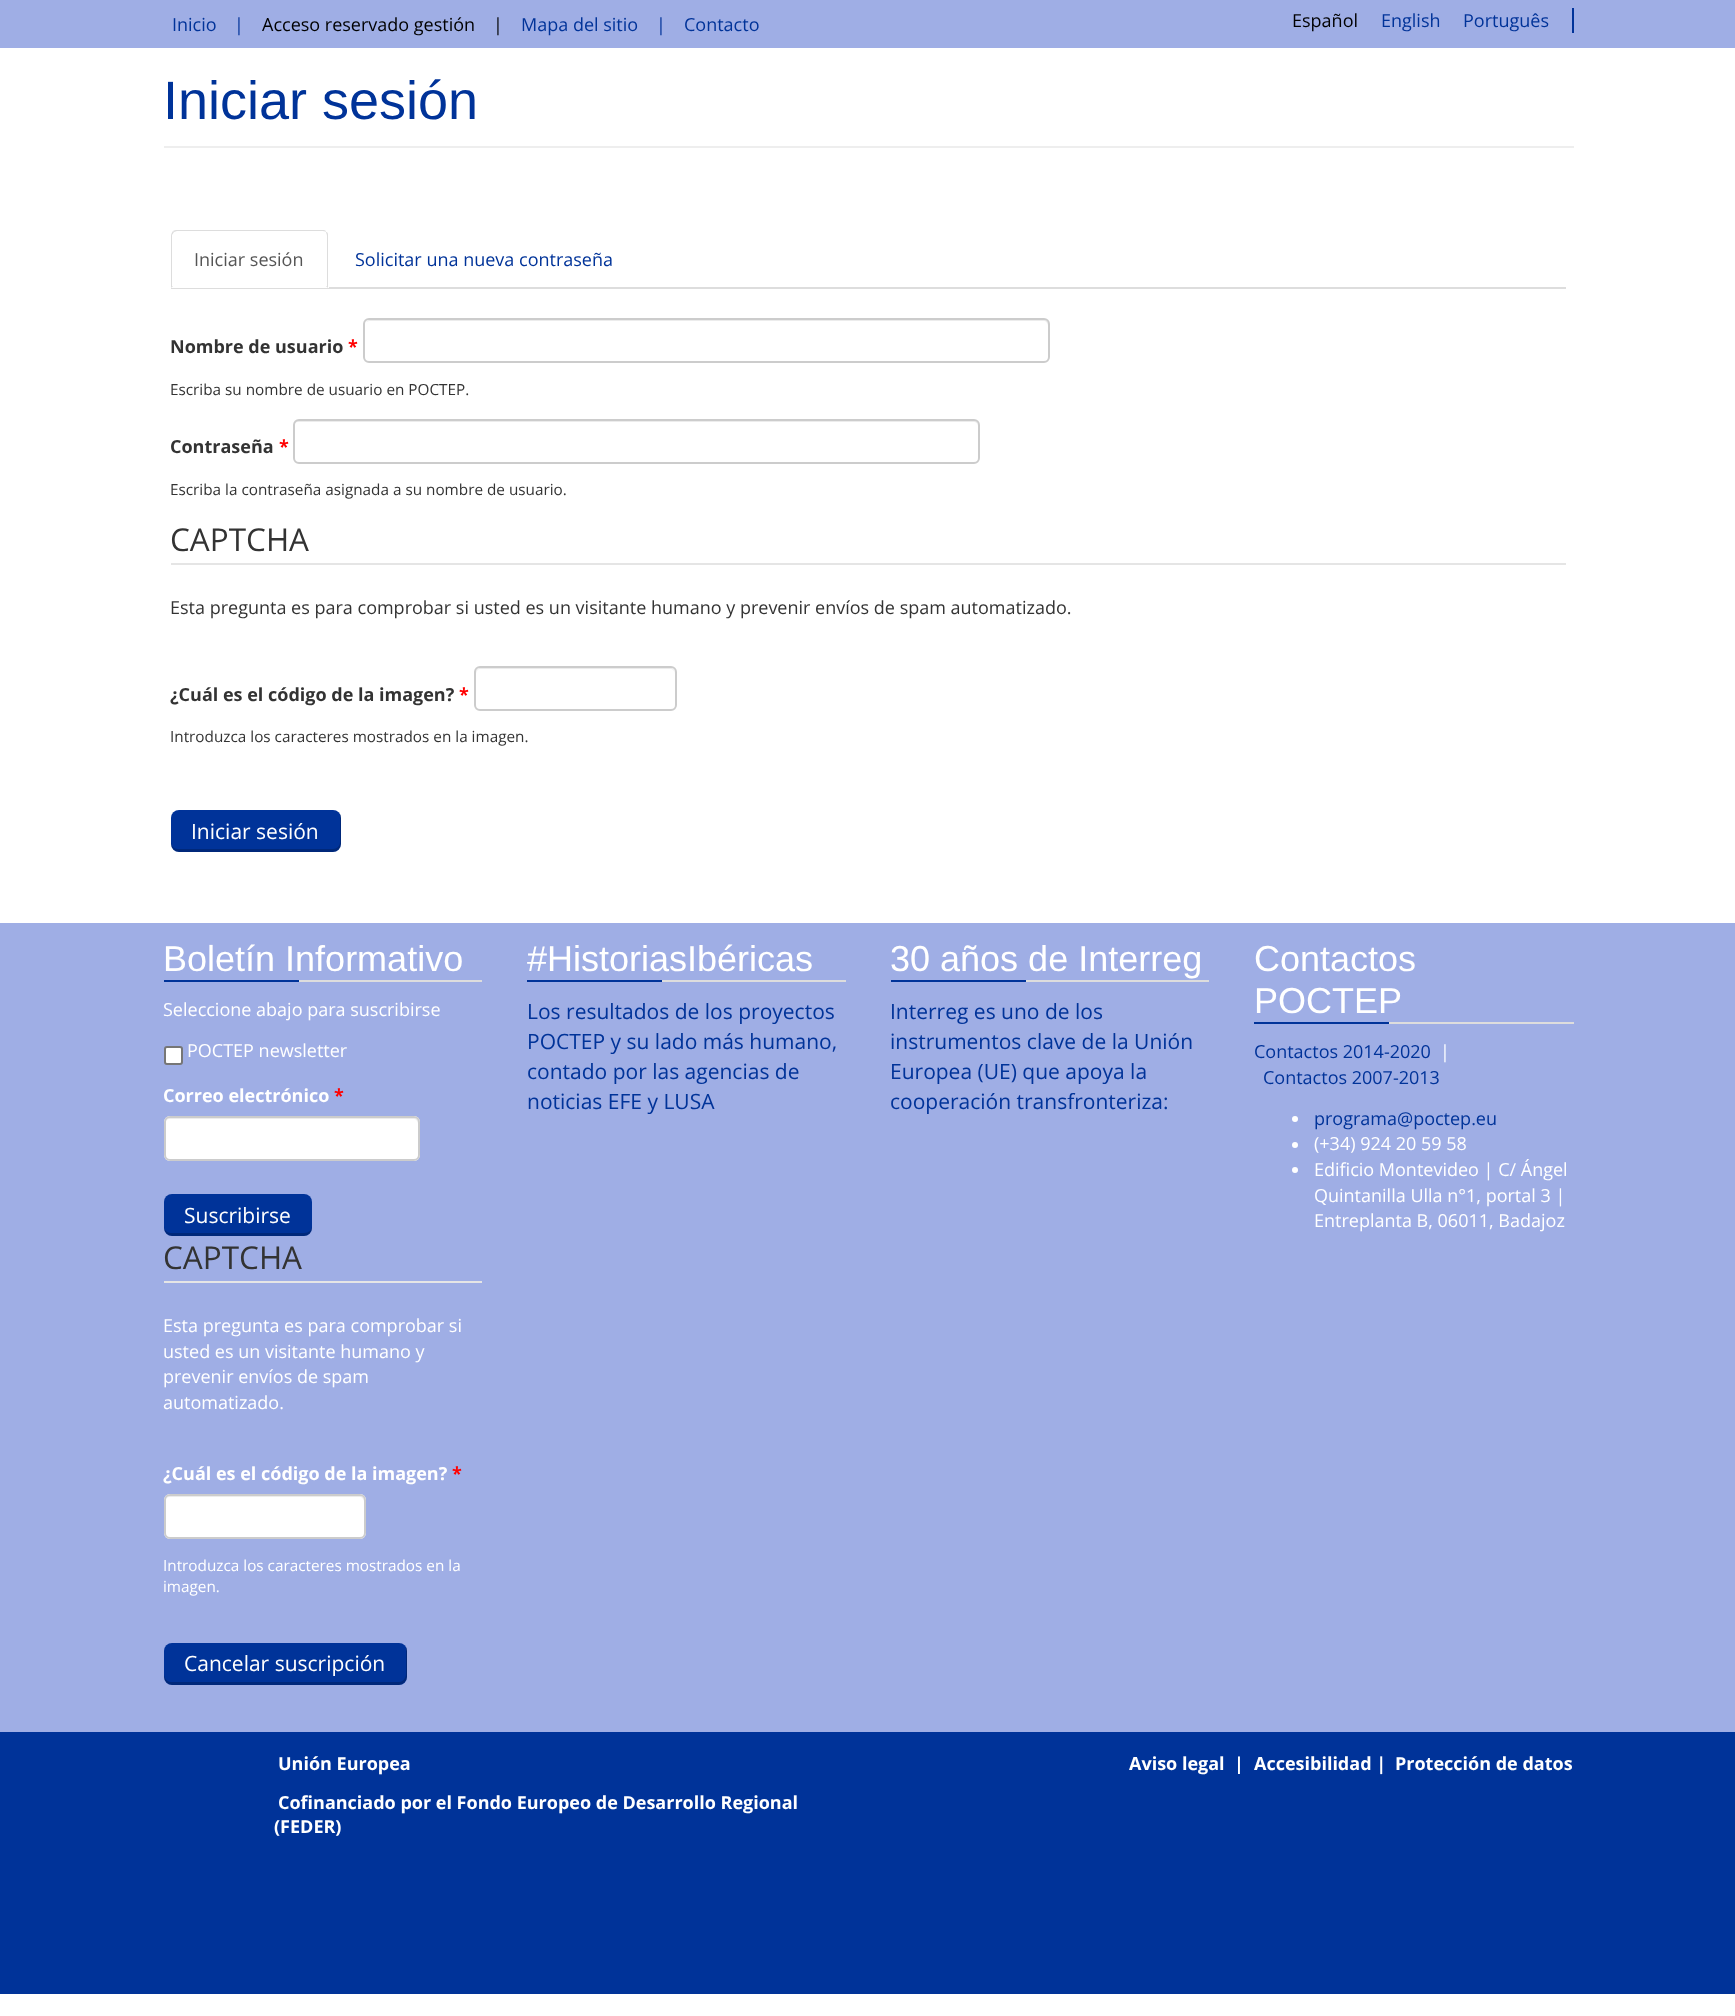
<svg xmlns="http://www.w3.org/2000/svg" width="1735" height="2016">
<style>
.a{font:18px Open Sans;fill:#039}
.b{font:18px Open Sans;fill:#000}
.c{font:54px Liberation Sans;fill:#039}
.d{font:18px Open Sans;fill:#555}
.e{font:bold 18px Open Sans;fill:#333}
.f{font:bold 18px Open Sans;fill:#f00}
.g{font:15.3px Open Sans;fill:#333}
.h{font:31.5px Open Sans;fill:#333}
.i{font:18px Open Sans;fill:#333}
.j{font:21px Open Sans;fill:#fff}
.k{font:36px Liberation Sans;fill:#fff}
.l{font:18px Open Sans;fill:#fff}
.m{font:bold 18px Open Sans;fill:#fff}
.n{font:15.3px Open Sans;fill:#fff}
.o{font:21px Open Sans;fill:#039}
</style>
<rect width="100%" height="100%" fill="#fff"/>
<path fill="#9faee5" d="M0 0h1735v48H0z"/>
<path fill="#039" d="M1572 8h2v25H1572z"/>
<path fill="#eee" d="M164 146h1410v2H164z"/>
<path fill="#ddd" d="M171 287h1395v2H171z"/>
<path fill="#fff" d="M177 230h146c3.5 0 6 2.5 6 6v52h-158v-52c0-3.5 2.5-6 6-6z"/>
<path fill="#ddd" d="M177 230c-1 0-3 0-4 1l1 1l3-1h145c1 0 3 0 4 1c0-2-2-2-4-2z"/>
<path fill="#ddd" d="M328 288v-52c0-2 0-4-2-4c0 1 1 2 1 4v50h-1z"/>
<path fill="#ddd" d="M171 288l2-2h-1v-51l2-3l-1-1c-1 1-2 3-2 5z"/>
<path fill="#ececec" d="M369 321h675c2 0 4 2 4 5v32l-1 3c1-1 2-3 2-4v-32c0-3-2-5-5-5h-674c-2 0-3 1-4 2z"/>
<rect fill="none" stroke="#ccc" stroke-width="2" x="364" y="319" width="685" height="43" rx="5"/>
<path fill="#ececec" d="M298 422h676c2 0 4 2 4 4v-1c0-3-2-5-5-5h-674c-3 0-5 2-5 5v1c0-2 2-4 4-4z"/>
<rect fill="none" stroke="#ccc" stroke-width="2" x="294" y="420" width="685" height="43" rx="5"/>
<path fill="#e5e5e5" d="M171 563h1395v2H171z"/>
<path fill="#ececec" d="M480 669h190c3 0 5 2 5 5v-1c0-3-2-5-5-5h-189c-3 0-5 2-5 5v1c0-3 2-5 4-5z"/>
<rect fill="none" stroke="#ccc" stroke-width="2" x="475" y="667" width="201" height="43" rx="5"/>
<rect fill="#039" x="171" y="810" width="170" height="42" rx="8"/>
<path fill="#00000033" d="M171 842v2c0 4 4 8 8 8h154c4 0 8-4 8-8v-26c0-1 0-3-1-4v28c0 4-3 7-7 7h-155c-4 0-7-3-7-7z"/>
<path fill="#9faee5" d="M0 923h1735v809H0z"/>
<path fill="#ddd" d="M299 980h183v2H299z"/>
<path fill="#039" d="M164 980h135v2H164z"/>
<rect fill="#fff" stroke="#767676" stroke-width="2" x="165" y="1047" width="17" height="17" rx="2"/>
<rect fill="#fff" x="164" y="1116" width="256" height="45" rx="6"/>
<path fill="#ececec" d="M170 1119h244c2 0 4 2 4 5v32l-1 3c1-1 2-3 2-4v-32c0-3-2-5-5-5h-244c-3 0-5 2-5 5v1c0-3 2-5 5-5z"/>
<rect fill="none" stroke="#ccc" stroke-width="2" x="165" y="1117" width="254" height="43" rx="5"/>
<rect fill="#039" x="164" y="1194" width="148" height="42" rx="8"/>
<path fill="#00000033" d="M164 1226v2c0 4 4 8 8 8h132c4 0 8-4 8-8v-2c0 4-3 7-8 7h-133c-4 0-7-3-7-7z"/>
<path fill="#e5e5e5" d="M164 1281h318v2H164z"/>
<rect fill="#fff" x="164" y="1494" width="202" height="45" rx="6"/>
<path fill="#ececec" d="M170 1497h190c2 0 4 2 4 5v32l-1 3c1-1 2-3 2-4v-32c0-3-2-5-5-5h-190c-3 0-5 2-5 5v1c0-3 2-5 5-5z"/>
<rect fill="none" stroke="#ccc" stroke-width="2" x="165" y="1495" width="200" height="43" rx="5"/>
<rect fill="#039" x="164" y="1643" width="243" height="42" rx="8"/>
<path fill="#00000033" d="M164 1674v3c0 4 4 8 8 8h227c4 0 8-4 8-8v-26c0-1 0-3-1-4v27c0 4-3 8-7 8h-228c-4 0-7-4-7-8z"/>
<path fill="#ddd" d="M662 980h184v2H662z"/>
<path fill="#039" d="M527 980h135v2H527z"/>
<path fill="#ddd" d="M1026 980h183v2H1026z"/>
<path fill="#039" d="M891 980h135v2H891z"/>
<path fill="#ddd" d="M1389 1022h185v2H1389z"/>
<path fill="#039" d="M1254 1022h135v2H1254z"/>
<circle fill="#fff" cx="1295" cy="1119" r="3"/>
<circle fill="#fff" cx="1295" cy="1145" r="3"/>
<circle fill="#fff" cx="1295" cy="1170" r="3"/>
<path fill="#039" d="M0 1732h1735v262H0z"/>
<text class="a" x="172" y="31">Inicio</text>
<text class="a" x="234" y="31">|</text>
<text class="b" x="262" y="31">Acceso reservado gestión</text>
<text class="b" x="493" y="31">|</text>
<text class="a" x="521" y="31">Mapa del sitio</text>
<text class="a" x="656" y="31">|</text>
<text class="a" x="684" y="31">Contacto</text>
<text class="b" x="1292" y="27">Español</text>
<text class="a" x="1381" y="27">English</text>
<text class="a" x="1463" y="27">Português</text>
<text class="c" x="163" y="119">Iniciar sesión</text>
<text class="d" x="194" y="266">Iniciar sesión</text>
<text class="a" x="355" y="266">Solicitar una nueva contraseña</text>
<text class="e" x="170" y="353">Nombre de usuario</text>
<text class="f" x="348" y="353">*</text>
<text class="g" x="170" y="395">Escriba su nombre de usuario en POCTEP.</text>
<text class="e" x="170" y="453">Contraseña</text>
<text class="f" x="279" y="453">*</text>
<text class="g" x="170" y="495">Escriba la contraseña asignada a su nombre de usuario.</text>
<text class="h" x="170" y="551">CAPTCHA</text>
<text class="i" x="170" y="614">Esta pregunta es para comprobar si usted es un visitante humano y prevenir envíos de spam automatizado.</text>
<text class="e" x="170" y="701">¿Cuál es el código de la imagen?</text>
<text class="f" x="459" y="701">*</text>
<text class="g" x="170" y="742">Introduzca los caracteres mostrados en la imagen.</text>
<text class="j" x="191" y="839">Iniciar sesión</text>
<text class="k" x="163" y="971">Boletín Informativo</text>
<text class="l" x="163" y="1016">Seleccione abajo para suscribirse</text>
<text class="l" x="187" y="1057">POCTEP newsletter</text>
<text class="m" x="163" y="1102">Correo electrónico</text>
<text class="f" x="334" y="1102">*</text>
<text class="j" x="184" y="1223">Suscribirse</text>
<text class="h" x="163" y="1269">CAPTCHA</text>
<text class="l" x="163" y="1332">Esta pregunta es para comprobar si</text>
<text class="l" x="163" y="1358">usted es un visitante humano y</text>
<text class="l" x="163" y="1383">prevenir envíos de spam</text>
<text class="l" x="163" y="1409">automatizado.</text>
<text class="m" x="163" y="1480">¿Cuál es el código de la imagen?</text>
<text class="f" x="452" y="1480">*</text>
<text class="n" x="163" y="1571">Introduzca los caracteres mostrados en la</text>
<text class="n" x="163" y="1592">imagen.</text>
<text class="j" x="184" y="1671">Cancelar suscripción</text>
<text class="k" x="527" y="971">#HistoriasIbéricas</text>
<text class="o" x="527" y="1019">Los resultados de los proyectos</text>
<text class="o" x="527" y="1049">POCTEP y su lado más humano,</text>
<text class="o" x="527" y="1079">contado por las agencias de</text>
<text class="o" x="527" y="1109">noticias EFE y LUSA</text>
<text class="k" x="890" y="971">30 años de Interreg</text>
<text class="o" x="890" y="1019">Interreg es uno de los</text>
<text class="o" x="890" y="1049">instrumentos clave de la Unión</text>
<text class="o" x="890" y="1079">Europea (UE) que apoya la</text>
<text class="o" x="890" y="1109">cooperación transfronteriza:</text>
<text class="k" x="1254" y="971">Contactos</text>
<text class="k" x="1254" y="1013">POCTEP</text>
<text class="a" x="1254" y="1058">Contactos 2014-2020</text>
<text class="l" x="1440" y="1058">|</text>
<text class="a" x="1263" y="1084">Contactos 2007-2013</text>
<text class="a" x="1314" y="1125">programa@poctep.eu</text>
<text class="l" x="1314" y="1150">(+34) 924 20 59 58</text>
<text class="l" x="1314" y="1176">Edificio Montevideo | C/ Ángel</text>
<text class="l" x="1314" y="1202">Quintanilla Ulla n°1, portal 3 |</text>
<text class="l" x="1314" y="1227">Entreplanta B, 06011, Badajoz</text>
<text class="m" x="278" y="1770">Unión Europea</text>
<text class="m" x="278" y="1809">Cofinanciado por el Fondo Europeo de Desarrollo Regional</text>
<text class="m" x="274" y="1833">(FEDER)</text>
<text class="m" x="1129" y="1770">Aviso legal</text>
<text class="m" x="1234" y="1770">|</text>
<text class="m" x="1254" y="1770">Accesibilidad |</text>
<text class="m" x="1395" y="1770">Protección de datos</text>
</svg>
